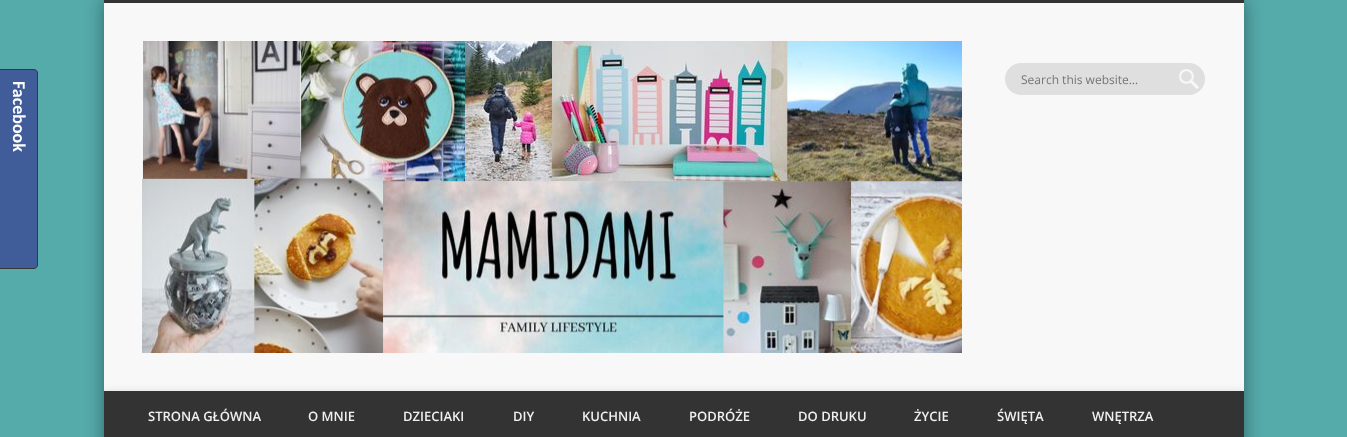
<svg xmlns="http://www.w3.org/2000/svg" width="1347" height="437">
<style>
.a{font:bold 18px Carlito;fill:#fcfcfc}
.b{font:12px Open Sans;fill:#757575}
.c{font:600 13px Open Sans;fill:#f0f0f0}
</style>
<defs>
<clipPath id="clip1"><path d="M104 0h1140v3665H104z"/></clipPath>
</defs>
<rect width="100%" height="100%" fill="#5aa"/>
<path fill="#405d9a" stroke="#383838" d="M-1.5 69.5h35.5c2 0 3.5 1.5 3.5 3.5v192c0 2-1.5 3.5-3.5 3.5h-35.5z"/>
<path fill="#00000066" filter="blur(9px)" d="M104 0h1140v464H104z"/>
<path fill="#f8f8f8" d="M104 3h1140v388H104z"/>
<path fill="#333" d="M104 0h1140v3H104z"/>
<image href="1.png" x="142" y="41" width="820" height="312"/>
<rect fill="#dfdfdf" x="1005" y="63" width="200" height="32" rx="16"/>
<image href="2.png" x="1179" y="69" width="20" height="20"/>
<g clip-path="url(#clip1)">
<path fill="#0000001a" filter="blur(3.5px)" d="M104 391h1140v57H104z"/>
</g>
<path fill="#333" d="M104 391h1140v46H104z"/>
<text class="a" x="13" y="81" transform="rotate(90 13 81)">Facebook</text>
<text class="b" x="1021" y="84">Search this website…</text>
<text class="c" x="148" y="421">STRONA GŁÓWNA</text>
<text class="c" x="308" y="421">O MNIE</text>
<text class="c" x="403" y="421">DZIECIAKI</text>
<text class="c" x="513" y="421">DIY</text>
<text class="c" x="582" y="421">KUCHNIA</text>
<text class="c" x="689" y="421">PODRÓŻE</text>
<text class="c" x="798" y="421">DO DRUKU</text>
<text class="c" x="914" y="421">ŻYCIE</text>
<text class="c" x="997" y="421">ŚWIĘTA</text>
<text class="c" x="1092" y="421">WNĘTRZA</text>
</svg>
